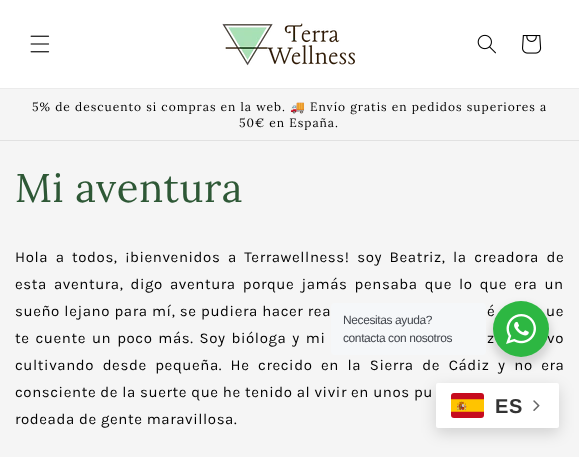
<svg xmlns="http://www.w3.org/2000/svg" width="579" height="457">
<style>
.a{font:12px Lora;letter-spacing:1px;fill:#000}
.b{font:12px Noto Color Emoji;letter-spacing:1px;fill:#000}
.c{font:40px Lora;letter-spacing:0.6px;fill:#2e5836}
.d{font:15px Karla;letter-spacing:0.6px;fill:#000}
.e{font:12px Liberation Sans;letter-spacing:-0.4px;fill:#43474e}
.f{font:bold 20px Liberation Sans;letter-spacing:0.6px;fill:#333}
</style>
<rect width="100%" height="100%" fill="#f5f5f5"/>
<path fill="#fff" d="M0 0h579v88H0z"/>
<path fill="#ebebeb" d="M0 88h579v1H0z"/>
<image href="1.png" x="30" y="35" width="20" height="18"/>
<image href="2.png" x="222" y="23" width="133" height="43"/>
<image href="3.png" x="477" y="34" width="19" height="20"/>
<image href="4.png" x="522" y="35" width="20" height="19"/>
<path fill="#e1e1e1" d="M0 140h579v1H0z"/>
<rect fill="#00000024" filter="blur(4px)" x="491" y="305" width="60" height="60" rx="30"/>
<rect fill="#f5f7f9" x="331" y="303" width="155" height="52" rx="4"/>
<rect fill="#00000026" filter="blur(7.5px)" x="436" y="388" width="123" height="45" rx="2"/>
<rect fill="#fff" x="436" y="383" width="123" height="45" rx="2"/>
<image href="6.png" x="451" y="393" width="33" height="25"/>
<image href="7.png" x="533" y="400" width="7" height="11"/>
<text class="a" x="32" y="111">5% de descuento si compras en la web.</text>
<text class="b" x="290" y="111">🚚</text>
<text class="a" x="310" y="111">Envío gratis en pedidos superiores a</text>
<text class="a" x="239" y="127">50€ en España.</text>
<text class="c" x="15" y="202">Mi aventura</text>
<text class="d" x="15" y="262" word-spacing="3.4">Hola a todos, ¡bienvenidos a Terrawellness! soy Beatriz, la creadora de</text>
<text class="d" x="15" y="289" word-spacing="2.9">esta aventura, digo aventura porque jamás pensaba que lo que era un</text>
<text class="d" x="15" y="316" word-spacing="0.25">sueño lejano para mí, se pudiera hacer rea</text>
<text class="d" x="487" y="316" word-spacing="0.25">é</text>
<text class="d" x="546" y="316" word-spacing="0.25">ue</text>
<text class="d" x="15" y="343" word-spacing="1.75">te cuente un poco más. Soy bióloga y mi</text>
<text class="d" x="487" y="343" word-spacing="1.75">z</text>
<text class="d" x="547" y="343" word-spacing="1.75">vo</text>
<text class="d" x="15" y="370" word-spacing="4.4">cultivando desde pequeña. He crecido en la Sierra de Cádiz y no era</text>
<text class="d" x="15" y="397">consciente de la suerte que he tenido al vivir en unos pu</text>
<text class="d" x="15" y="424">rodeada de gente maravillosa.</text>
<text class="e" x="343" y="324">Necesitas ayuda?</text>
<text class="e" x="343" y="342">contacta con nosotros</text>
<circle fill="#2db742" cx="521" cy="329" r="28"/>
<image href="5.png" x="506" y="314" width="30" height="30"/>
<text class="f" x="495" y="413">ES</text>
</svg>
